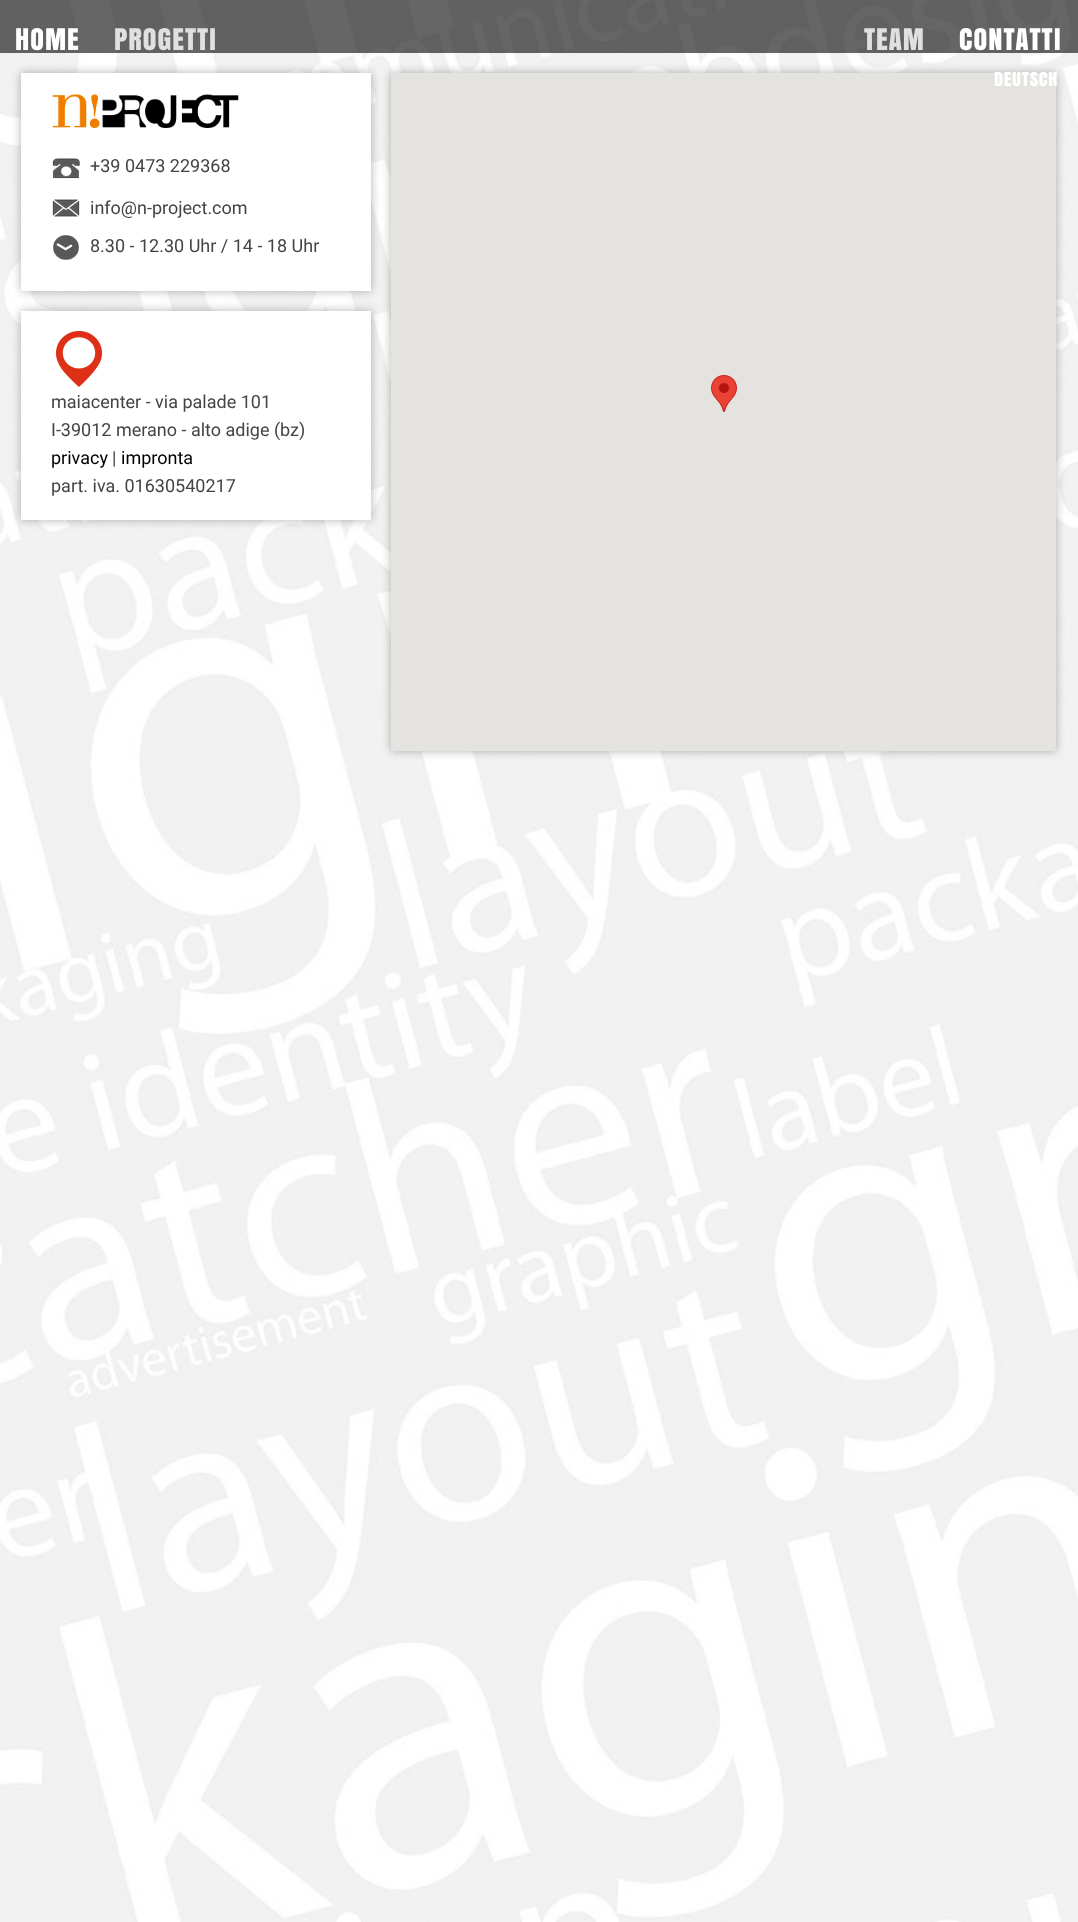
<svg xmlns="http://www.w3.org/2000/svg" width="1078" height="1922">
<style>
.a{font:28px Anton;letter-spacing:1px;fill:#fff}
.b{font:28px Anton;letter-spacing:1px;fill:#e0e0e0}
.c{font:18px Anton;letter-spacing:0.75px;fill:#fff}
.d{font:18px Roboto;fill:#444}
.e{font:18px Roboto;fill:#000}
</style>
<rect width="100%" height="100%" fill="#fff"/>
<image href="1.png" x="0" y="0" width="1078" height="1922"/>
<path fill="#00000099" d="M0 0h1078v53H0z"/>
<path fill="#0000004d" filter="blur(5px)" d="M21 73h350v218H21z"/>
<path fill="#fff" d="M21 73h350v218H21z"/>
<image href="2.png" x="52" y="94" width="187" height="34"/>
<image href="3.png" x="52" y="158" width="28" height="21"/>
<image href="4.png" x="52" y="199" width="28" height="18"/>
<image href="5.png" x="53" y="235" width="26" height="25"/>
<path fill="#0000004d" filter="blur(5px)" d="M21 311h350v209H21z"/>
<path fill="#fff" d="M21 311h350v209H21z"/>
<image href="6.png" x="56" y="331" width="46" height="56"/>
<path fill="#0000004d" filter="blur(5px)" d="M391 73h665v678H391z"/>
<path fill="#e5e3df" d="M391 73h665v678H391z"/>
<image href="7.png" x="711" y="375" width="26" height="37"/>
<text class="a" x="15" y="50">HOME</text>
<text class="b" x="114" y="50">PROGETTI</text>
<text class="b" x="864" y="50">TEAM</text>
<text class="a" x="959" y="50">CONTATTI</text>
<text class="c" x="994" y="86">DEUTSCH</text>
<text class="d" x="90" y="172">+39 0473 229368</text>
<text class="d" x="90" y="214">info@n-project.com</text>
<text class="d" x="90" y="252">8.30 - 12.30 Uhr / 14 - 18 Uhr</text>
<text class="d" x="51" y="408">maiacenter - via palade 101</text>
<text class="d" x="51" y="436">I-39012 merano - alto adige (bz)</text>
<text class="e" x="51" y="464">privacy</text>
<text class="d" x="112" y="464">|</text>
<text class="e" x="121" y="464">impronta</text>
<text class="d" x="51" y="492">part. iva. 01630540217</text>
</svg>
